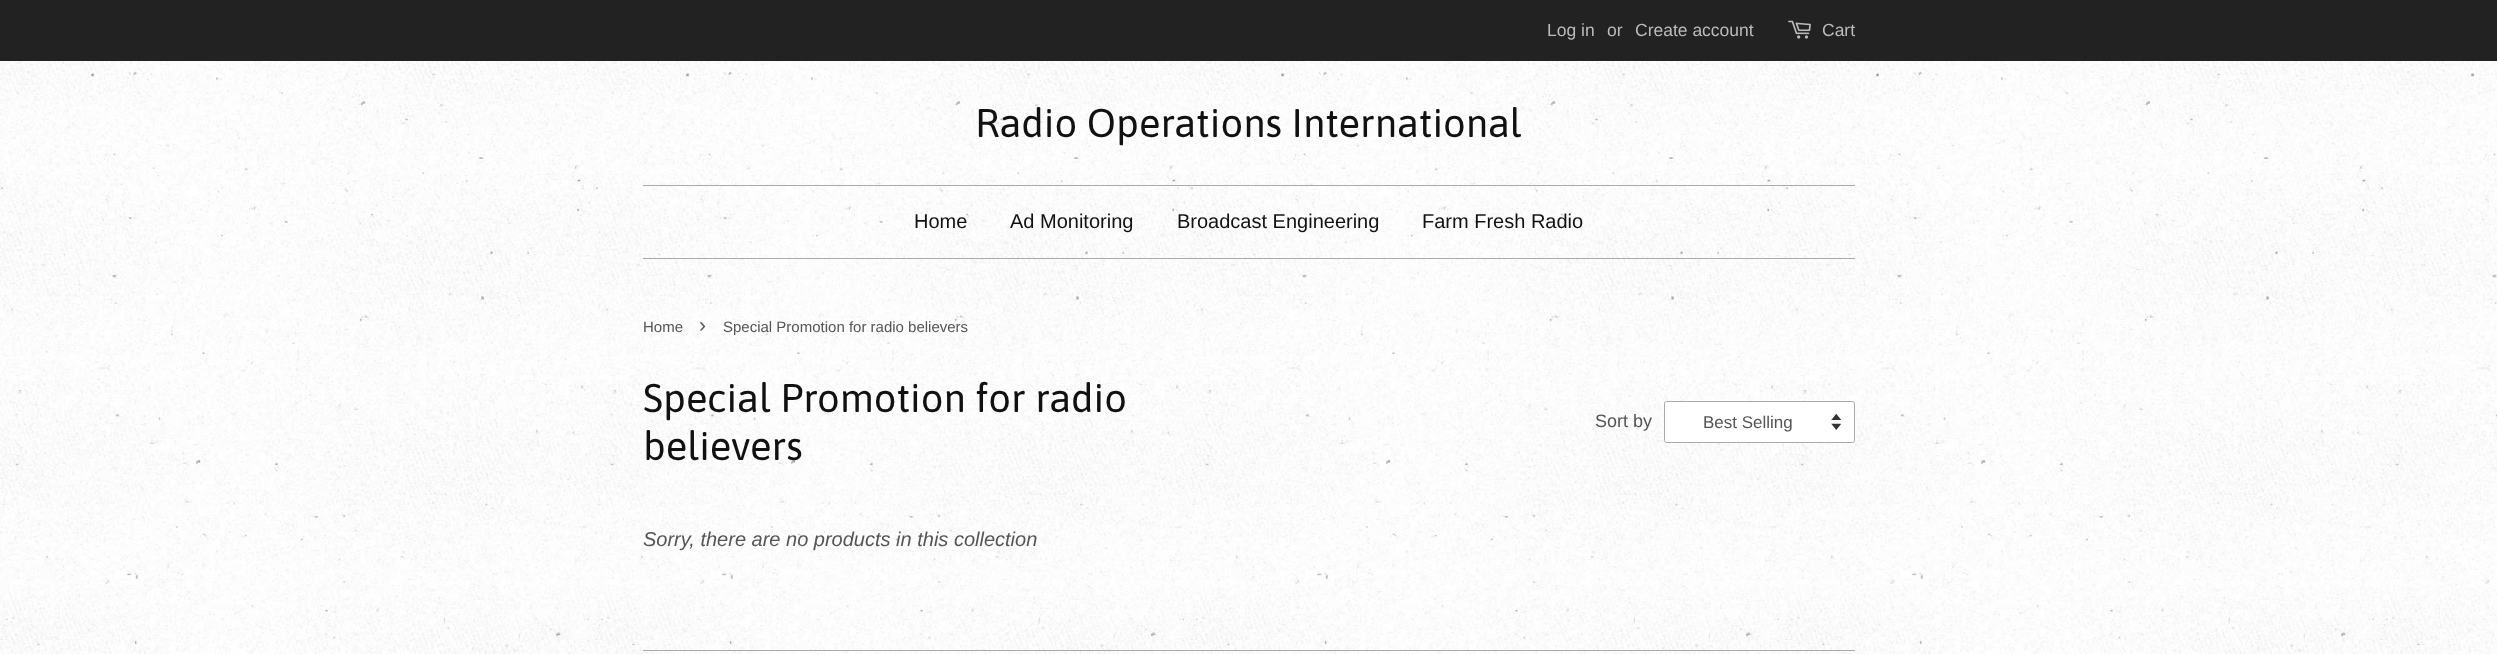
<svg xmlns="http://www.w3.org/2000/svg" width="2497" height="654">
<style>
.a{font:17.5px Liberation Sans;fill:#bbb}
.b{font:40px Asap;fill:#111}
.c{font:20px Liberation Sans;fill:#111}
.d{font:15px Liberation Sans;fill:#555}
.e{font:21px Liberation Sans;fill:#555}
.f{font:18px Liberation Sans;fill:#555}
.g{font:17px Liberation Sans;fill:#555}
.h{font:italic 20px Liberation Sans;fill:#555}
</style>
<rect width="100%" height="100%" fill="#fff"/>
<image href="1.png" x="0" y="61" width="2497" height="593"/>
<path fill="#222" d="M0 0h2497v61H0z"/>
<image href="2.png" x="1788" y="20" width="23" height="19"/>
<path fill="#aaa" d="M643 185h1212v1H643z"/>
<path fill="#aaa" d="M643 258h1212v1H643z"/>
<rect fill="#fff" x="1664" y="401" width="191" height="42" rx="2.5"/>
<image href="3.png" x="1831" y="414" width="10" height="16"/>
<rect fill="none" stroke="#aaa" x="1664.5" y="401.5" width="190" height="41" rx="2"/>
<path fill="#aaa" d="M643 650h1212v1H643z"/>
<text class="a" x="1547" y="36">Log in</text>
<text class="a" x="1607" y="36">or</text>
<text class="a" x="1635" y="36">Create account</text>
<text class="a" x="1822" y="36">Cart</text>
<text class="b" x="975" y="137">Radio Operations International</text>
<text class="c" x="914" y="228">Home</text>
<text class="c" x="1010" y="228">Ad Monitoring</text>
<text class="c" x="1177" y="228">Broadcast Engineering</text>
<text class="c" x="1422" y="228">Farm Fresh Radio</text>
<text class="d" x="643" y="332">Home</text>
<text class="e" x="699" y="332">›</text>
<text class="d" x="723" y="332">Special Promotion for radio believers</text>
<text class="b" x="643" y="412">Special Promotion for radio</text>
<text class="b" x="643" y="460">believers</text>
<text class="f" x="1595" y="427">Sort by</text>
<text class="g" x="1703" y="428">Best Selling</text>
<text class="h" x="643" y="546">Sorry, there are no products in this collection</text>
</svg>
